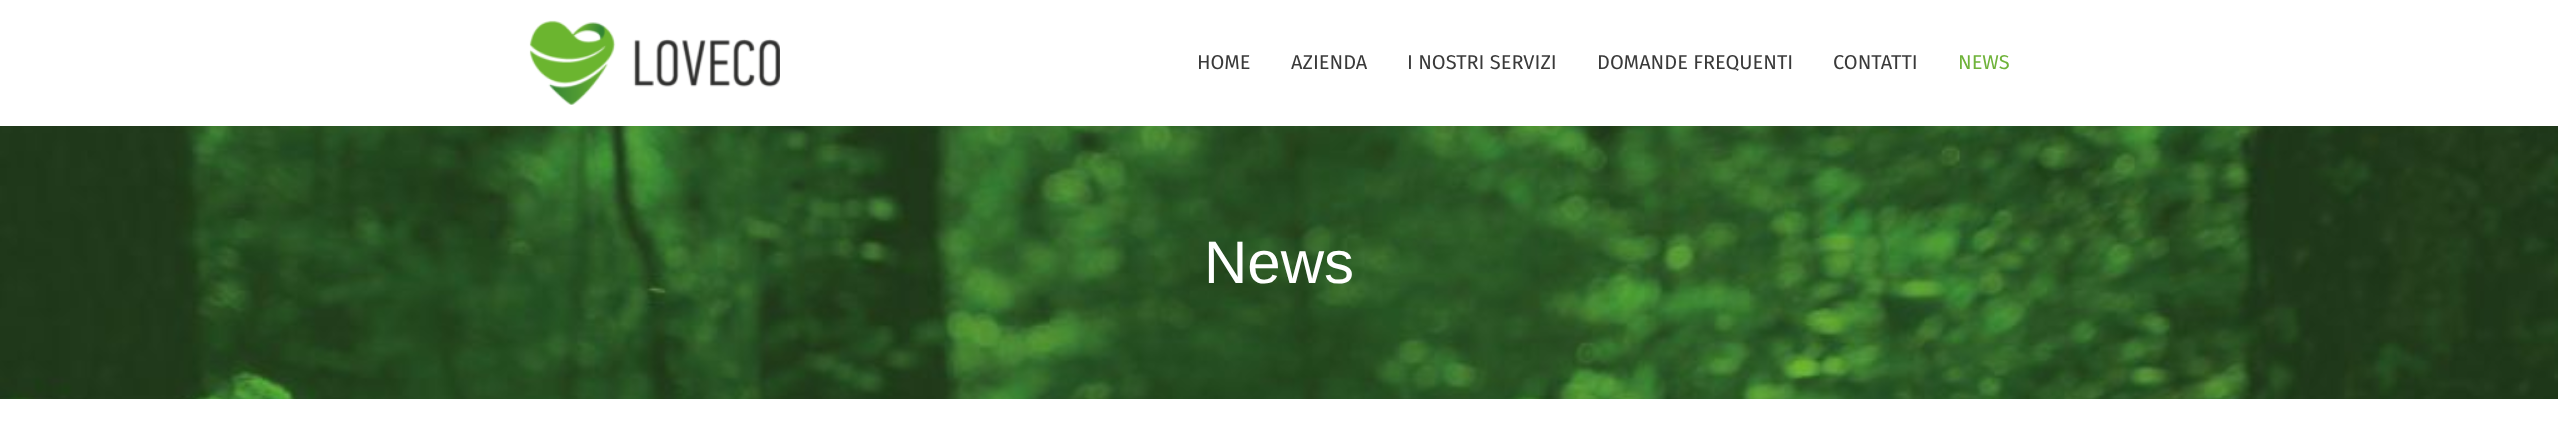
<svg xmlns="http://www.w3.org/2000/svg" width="2558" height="422">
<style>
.a{font:20px Fira Sans;fill:#3a3a3a}
.b{font:20px Fira Sans;fill:#6fb33a}
.c{font:60px Liberation Sans;fill:#fff}
</style>
<rect width="100%" height="100%" fill="#fff"/>
<image href="1.png" x="529" y="20" width="251" height="85"/>
<image href="2.png" x="0" y="126" width="2558" height="273"/>
<text class="a" x="1197" y="69">HOME</text>
<text class="a" x="1291" y="69">AZIENDA</text>
<text class="a" x="1407" y="69">I NOSTRI SERVIZI</text>
<text class="a" x="1597" y="69">DOMANDE FREQUENTI</text>
<text class="a" x="1833" y="69">CONTATTI</text>
<text class="b" x="1958" y="69">NEWS</text>
<text class="c" x="1204" y="283">News</text>
</svg>
